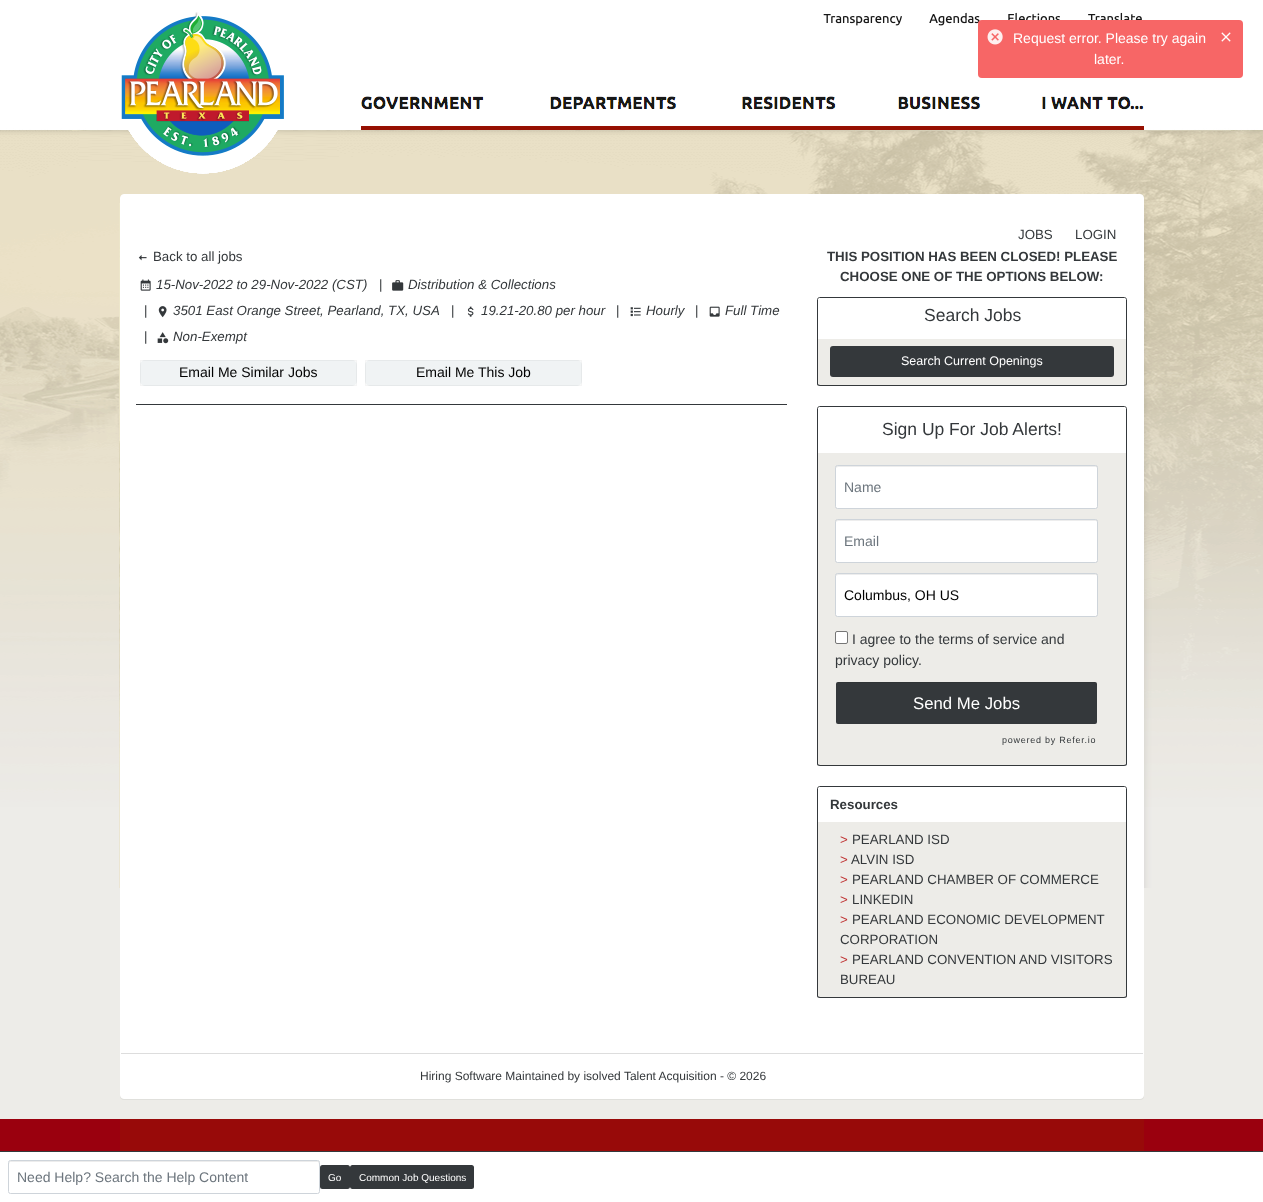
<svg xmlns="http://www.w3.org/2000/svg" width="1263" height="1202">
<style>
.a{font:14px Liberation Sans;fill:#fff}
.b{font:13.3px Liberation Sans;fill:#34383b}
.c{font:italic 13.3px Liberation Sans;fill:#34383b}
.d{font:14px Liberation Sans;fill:#000}
.e{font:bold 13.3px Liberation Sans;fill:#34383b}
.f{font:17.5px Liberation Sans;fill:#34383b}
.g{font:12.5px Liberation Sans;fill:#fff}
.h{font:14px Liberation Sans;fill:#6c757d}
.i{font:14px Liberation Sans;fill:#34383b}
.j{font:16.75px Liberation Sans;fill:#fff}
.k{font:9px Liberation Sans;letter-spacing:0.75px;fill:#34383b}
.l{font:13.3px Liberation Sans;fill:#bf3131}
.m{font:12px Liberation Sans;fill:#34383b}
.n{font:10px Liberation Sans;fill:#fff}
</style>
<rect width="100%" height="100%" fill="#edece8"/>
<image href="1.png" x="0" y="0" width="1263" height="888"/>
<image href="4.png" x="121" y="12" width="1023" height="162"/>
<rect fill="#f65555" x="978" y="20" width="265" height="58" rx="4"/>
<image href="2.png" x="987" y="29" width="16" height="16"/>
<rect fill="#ffffff1a" x="978" y="20" width="265" height="58" rx="4"/>
<image href="3.png" x="1221" y="32" width="10" height="10"/>
<rect fill="#0000000d" filter="blur(0.5px)" x="120" y="195" width="1024" height="905" rx="4"/>
<rect fill="#fff" stroke="#fff" x="120.5" y="194.5" width="1023" height="904" rx="3.5"/>
<image href="5.png" x="138" y="255" width="9" height="6"/>
<image href="6.png" x="140" y="279" width="11" height="12"/>
<image href="7.png" x="392" y="280" width="12" height="11"/>
<image href="8.png" x="158" y="306" width="9" height="12"/>
<image href="9.png" x="467" y="306" width="7" height="11"/>
<image href="10.png" x="630" y="307" width="11" height="10"/>
<image href="11.png" x="709" y="306" width="11" height="11"/>
<image href="12.png" x="157" y="332" width="12" height="12"/>
<rect fill="#f0f3f4" x="140" y="360" width="217" height="26" rx="5"/>
<path fill="none" stroke="#0000000a" d="M140.5 360.5h216v25H140.5z"/>
<rect fill="#f0f3f4" x="365" y="360" width="217" height="26" rx="5"/>
<path fill="none" stroke="#0000000a" d="M365.5 360.5h216v25H365.5z"/>
<path fill="#34383b" d="M136 404h651v1H136z"/>
<path fill="none" stroke="#34383b" d="M819.5 297.5h305c1 0 2 1 2 2v40h-309v-40c0-1 1-2 2-2z"/>
<path fill="#edece8" d="M818 339h308v44.5c0 1-.5 1.5-1.5 1.5h-305c-1 0-1.5-.5-1.5-1.5z"/>
<path fill="#34383b" fill-rule="evenodd" d="M817 339h310v45c0 1-1 2-3 2h-304c-2 0-3-1-3-2zm1 0h308v45c0 0-1 1-2 1h-304c-1 0-2-1-2-1z"/>
<rect fill="#34383b" x="830" y="346" width="284" height="31" rx="3"/>
<path fill="none" stroke="#34383b" d="M819.5 406.5h305c1 0 2 1 2 2v45h-309v-45c0-1 1-2 2-2z"/>
<path fill="#edece8" d="M818 453h308v310.5c0 1-.5 1.5-1.5 1.5h-305c-1 0-1.5-.5-1.5-1.5z"/>
<path fill="#34383b" fill-rule="evenodd" d="M817 453h310v311c0 1-1 2-3 2h-304c-2 0-3-1-3-2zm1 0h308v311c0 0-1 1-2 1h-304c-1 0-2-1-2-1z"/>
<rect fill="#fff" x="836" y="466" width="261" height="42" rx="1.5"/>
<path fill="#00000012" d="M838 467h258l1 1c0-1 0-2-1-2h-259l-1 1v1z"/>
<rect fill="none" stroke="#ced4da" x="835.5" y="465.5" width="262" height="43" rx="2"/>
<rect fill="#fff" x="836" y="520" width="261" height="42" rx="1.5"/>
<path fill="#00000012" d="M838 521h258l1 1c0-1 0-2-1-2h-259l-1 1v1z"/>
<rect fill="none" stroke="#ced4da" x="835.5" y="519.5" width="262" height="43" rx="2"/>
<rect fill="#fff" x="836" y="574" width="261" height="42" rx="1.5"/>
<path fill="#00000012" d="M838 575h258l1 1c0-1 0-2-1-2h-259l-1 1v1z"/>
<rect fill="none" stroke="#ced4da" x="835.5" y="573.5" width="262" height="43" rx="2"/>
<rect fill="#fff" stroke="#767676" x="835.5" y="631.5" width="12" height="12" rx="1.5"/>
<rect fill="#34383b" x="836" y="682" width="261" height="42" rx="2"/>
<path fill="#00000012" d="M838 683h257c1 0 2 1 2 2v-1c0-1-1-2-2-2h-257c-1 0-2 1-2 2v1c0-1 1-2 2-2z"/>
<path fill="none" stroke="#34383b" d="M819.5 786.5h305c1 0 2 1 2 2v34h-309v-34c0-1 1-2 2-2z"/>
<path fill="#edece8" d="M818 822h308v173.5c0 1-.5 1.5-1.5 1.5h-305c-1 0-1.5-.5-1.5-1.5z"/>
<path fill="#34383b" fill-rule="evenodd" d="M817 822h310v174c0 1-1 2-3 2h-304c-2 0-3-1-3-2zm1 0h308v174c0 0-1 1-2 1h-304c-1 0-2-1-2-1z"/>
<path fill="#ddd" d="M121 1053h1022v1H121z"/>
<path fill="#9a000e" d="M0 1119h1263v32H0z"/>
<image href="13.png" x="120" y="1119" width="1024" height="32"/>
<path fill="#fff" d="M0 1152h1263v50H0z"/>
<path fill="#34383b" d="M0 1151h1263v1H0z"/>
<path fill="#ececec" d="M10 1162h308l1 2c0-1 0-3-1-3h-308l-1 1v2z"/>
<rect fill="none" stroke="#ced4da" x="8.5" y="1160.5" width="311" height="33" rx="2"/>
<rect fill="#34383b" x="320" y="1165" width="30" height="24" rx="2.5"/>
<rect fill="#34383b" x="350" y="1165" width="124" height="24" rx="2.5"/>
<text class="a" x="1013" y="43">Request error. Please try again</text>
<text class="a" x="1094" y="64">later.</text>
<text class="b" x="1018" y="239">JOBS</text>
<text class="b" x="1075" y="239">LOGIN</text>
<text class="b" x="153" y="261">Back to all jobs</text>
<text class="c" x="156" y="289">15-Nov-2022 to 29-Nov-2022 (CST)</text>
<text class="b" x="379" y="289">|</text>
<text class="c" x="408" y="289">Distribution &amp; Collections</text>
<text class="b" x="144" y="315">|</text>
<text class="c" x="173" y="315">3501 East Orange Street, Pearland, TX, USA</text>
<text class="b" x="451" y="315">|</text>
<text class="c" x="481" y="315">19.21-20.80 per hour</text>
<text class="b" x="616" y="315">|</text>
<text class="c" x="646" y="315">Hourly</text>
<text class="b" x="695" y="315">|</text>
<text class="c" x="725" y="315">Full Time</text>
<text class="b" x="144" y="341">|</text>
<text class="c" x="173" y="341">Non-Exempt</text>
<text class="d" x="179" y="377">Email Me Similar Jobs</text>
<text class="d" x="416" y="377">Email Me This Job</text>
<text class="e" x="827" y="261">THIS POSITION HAS BEEN CLOSED! PLEASE</text>
<text class="e" x="840" y="281">CHOOSE ONE OF THE OPTIONS BELOW:</text>
<text class="f" x="924" y="321">Search Jobs</text>
<text class="g" x="901" y="365">Search Current Openings</text>
<text class="f" x="882" y="435">Sign Up For Job Alerts!</text>
<text class="h" x="844" y="492">Name</text>
<text class="h" x="844" y="546">Email</text>
<text class="d" x="844" y="600">Columbus, OH US</text>
<text class="i" x="852" y="644">I agree to the terms of service and</text>
<text class="i" x="835" y="665">privacy policy.</text>
<text class="j" x="913" y="709">Send Me Jobs</text>
<text class="k" x="1002" y="743">powered by Refer.io</text>
<text class="e" x="830" y="809">Resources</text>
<text class="l" x="840" y="844">&gt;</text>
<text class="b" x="852" y="844">PEARLAND ISD</text>
<text class="l" x="840" y="864">&gt;</text>
<text class="b" x="851" y="864">ALVIN ISD</text>
<text class="l" x="840" y="884">&gt;</text>
<text class="b" x="852" y="884">PEARLAND CHAMBER OF COMMERCE</text>
<text class="l" x="840" y="904">&gt;</text>
<text class="b" x="852" y="904">LINKEDIN</text>
<text class="l" x="840" y="924">&gt;</text>
<text class="b" x="852" y="924">PEARLAND ECONOMIC DEVELOPMENT</text>
<text class="b" x="840" y="944">CORPORATION</text>
<text class="l" x="840" y="964">&gt;</text>
<text class="b" x="852" y="964">PEARLAND CONVENTION AND VISITORS</text>
<text class="b" x="840" y="984">BUREAU</text>
<text class="m" x="420" y="1080">Hiring Software Maintained by isolved Talent Acquisition - © 2026</text>
<text class="h" x="17" y="1182">Need Help? Search the Help Content</text>
<text class="n" x="328" y="1181">Go</text>
<text class="n" x="359" y="1181">Common Job Questions</text>
</svg>
